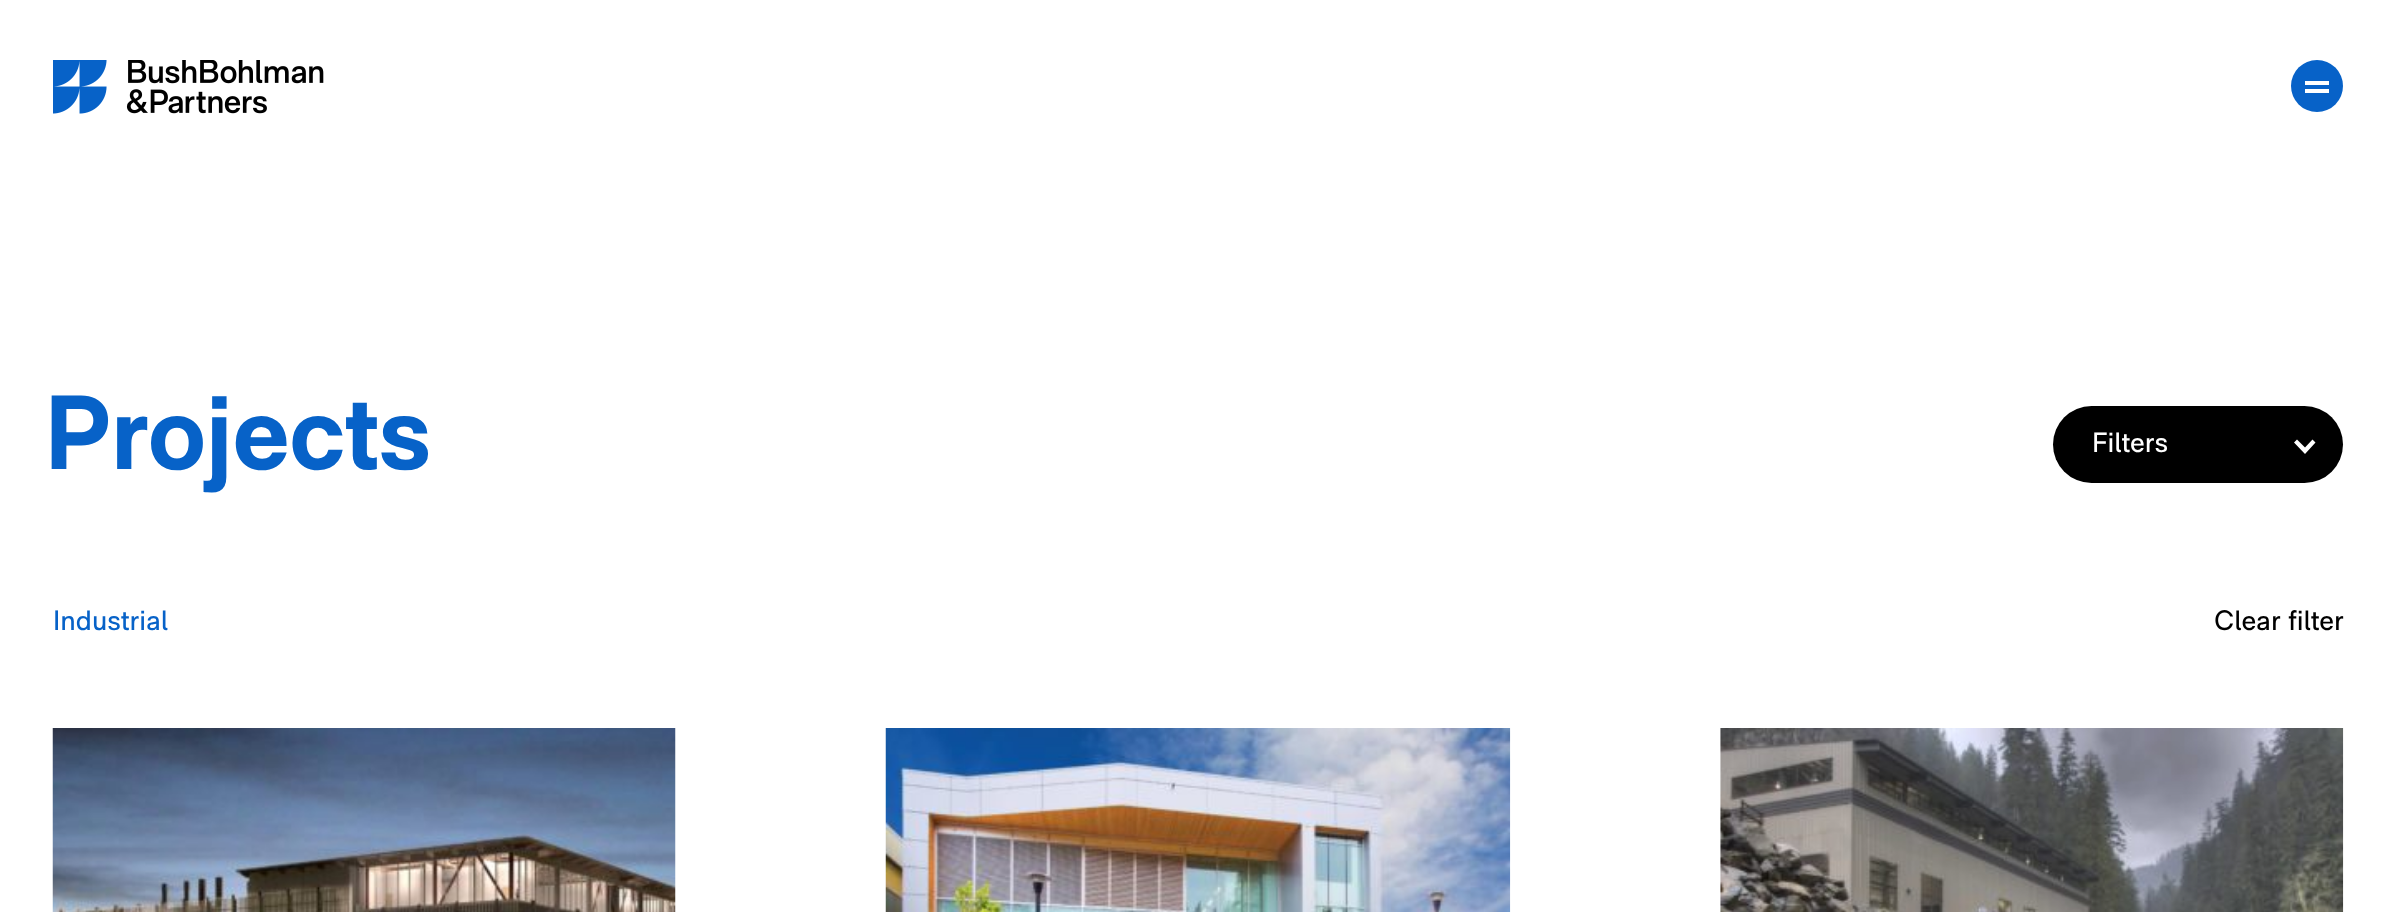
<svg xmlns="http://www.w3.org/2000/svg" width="2395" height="912">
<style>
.a{font:bold 105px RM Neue;letter-spacing:-0.25px;fill:#0762c8}
.b{font:28px RM Neue;fill:#fff}
.c{font:28px RM Neue;fill:#0762c8}
.d{font:28px RM Neue;fill:#000}
</style>
<rect width="100%" height="100%" fill="#fff"/>
<image href="1.png" x="53" y="60" width="271" height="54"/>
<circle fill="#0762c8" cx="2317" cy="86" r="26"/>
<path fill="#fff" d="M2305 81h24v4H2305z"/>
<path fill="#fff" d="M2305 89h24v4H2305z"/>
<rect fill="#000" x="2053" y="406" width="290" height="77" rx="38.5"/>
<path fill="#fff" fill-rule="evenodd" d="M2294 442.5l11 11.5l10.5-11.5l-3-3l-7.5 8l-8-8z"/>
<image href="2.png" x="52" y="728" width="624" height="184"/>
<image href="3.png" x="885" y="728" width="626" height="184"/>
<image href="4.png" x="1720" y="728" width="624" height="184"/>
<text class="a" x="44" y="469">Projects</text>
<text class="b" x="2092" y="452">Filters</text>
<text class="c" x="53" y="630">Industrial</text>
<text class="d" x="2214" y="630">Clear filter</text>
</svg>
